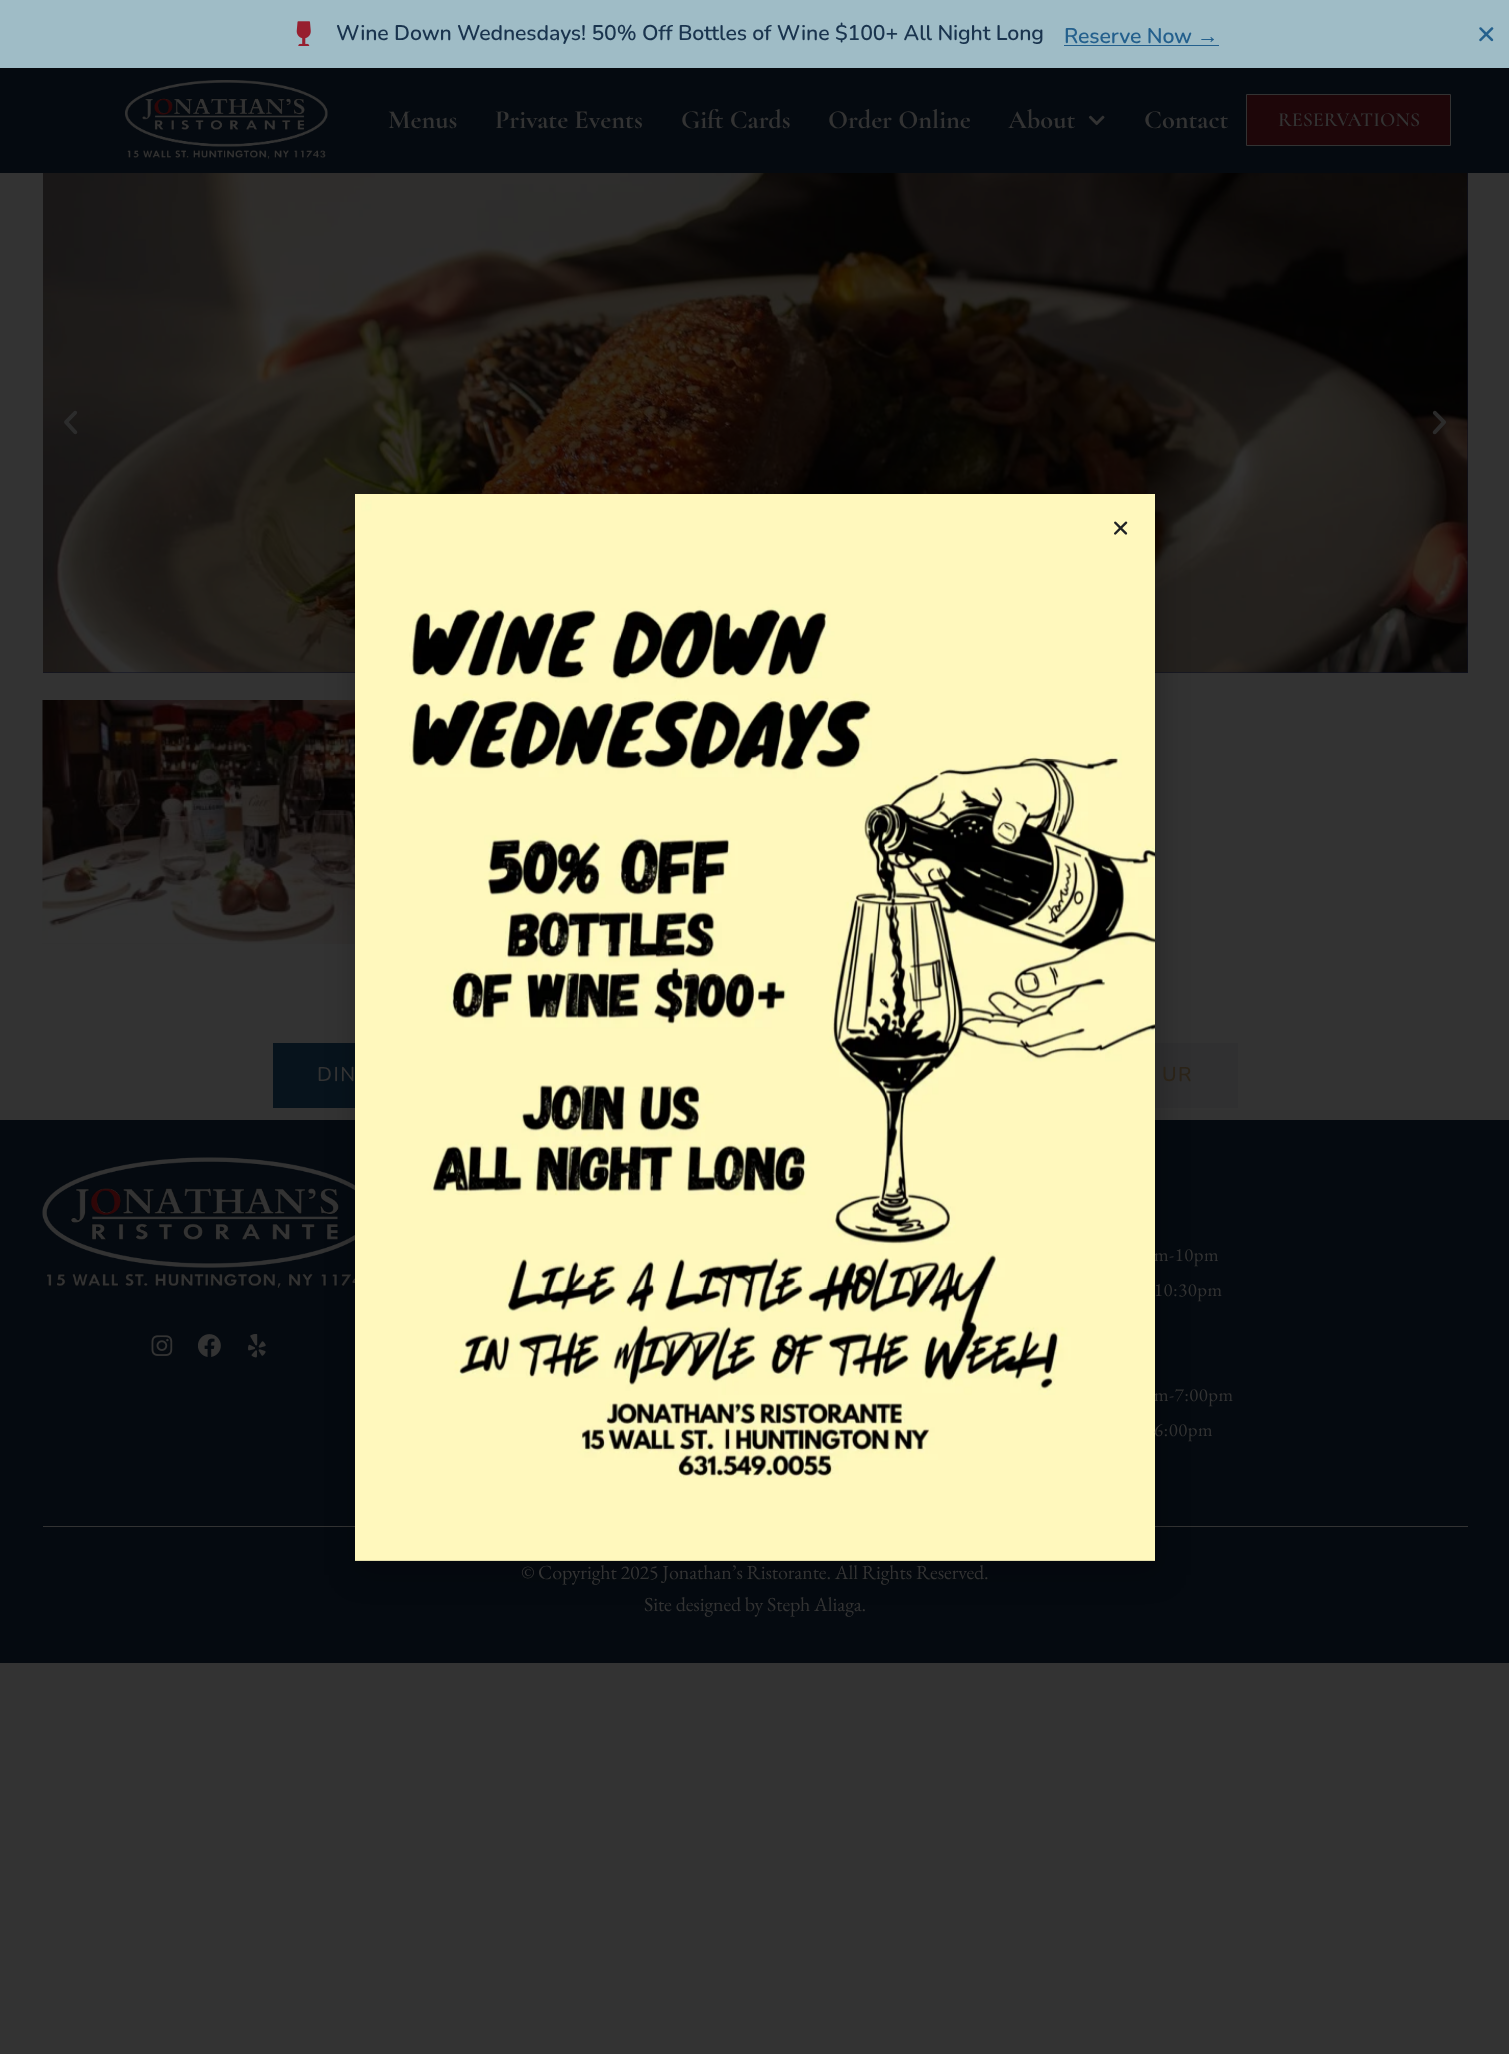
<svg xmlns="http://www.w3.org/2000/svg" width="1509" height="2054">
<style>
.a{font:600 21.25px Nunito;letter-spacing:-0.12px;fill:#1a344e}
.b{font:600 21.25px Nunito;letter-spacing:-0.12px;fill:#24608d}
.c{font:bold 21.25px Liberation Sans;letter-spacing:-0.12px;fill:#24608d}
.d{font:bold 26.25px Cormorant Garamond;fill:#333}
.e{font:600 20px Cormorant SC;fill:#333}
.f{font:500 20px Nunito;letter-spacing:1.5px;fill:#333}
.g{font:500 20px Nunito;letter-spacing:1.5px;fill:#2b2317}
.h{font:18.75px EB Garamond;letter-spacing:0.5px;fill:#333}
.i{font:20px EB Garamond;letter-spacing:-0.12px;fill:#333}
</style>
<rect width="100%" height="100%" fill="#333"/>
<path fill="#9fbcc6" d="M0 0h1509v68H0z"/>
<image href="1.png" x="296" y="21" width="15" height="25"/>
<path fill="#24608d" d="M1064 45h155v1H1064z"/>
<image href="2.png" x="1479" y="27" width="15" height="15"/>
<path fill="#050a10" d="M0 68h1509v105H0z"/>
<image href="3.png" x="125" y="80" width="203" height="79"/>
<image href="4.png" x="1088" y="115" width="17" height="11"/>
<path fill="#1e0609" stroke="#333" d="M1246.5 94.5h204v51H1246.5z"/>
<path fill="#0d1124" d="M43 173h1425v500H43z"/>
<image href="7.png" x="43" y="173" width="1425" height="500"/>
<image href="10.png" x="42" y="700" width="313" height="244"/>
<path fill="#07131c" d="M273 1043h82v65H273z"/>
<path fill="#303031" d="M1155 1043h83v65H1155z"/>
<path fill="#050a10" d="M0 1120h1509v543H0z"/>
<image href="11.png" x="42" y="1157" width="313" height="132"/>
<path fill="#333" d="M43 1526h1425v1H43z"/>
<path fill="#00000033" filter="blur(14.5px)" d="M354 500h807v1075H354z"/>
<image href="8.png" x="64" y="410" width="14" height="25"/>
<image href="9.png" x="1432" y="410" width="14" height="25"/>
<image href="12.png" x="151" y="1335" width="22" height="21"/>
<image href="13.png" x="198" y="1334" width="23" height="23"/>
<image href="14.png" x="248" y="1334" width="18" height="24"/>
<text class="a" x="336" y="40">Wine Down Wednesdays! 50% Off Bottles of Wine $100+ All Night Long</text>
<text class="b" x="1064" y="43">Reserve Now</text>
<text class="c" x="1197" y="43">→</text>
<text class="d" x="388" y="128">Menus</text>
<text class="d" x="495" y="128">Private Events</text>
<text class="d" x="681" y="128">Gift Cards</text>
<text class="d" x="828" y="128">Order Online</text>
<text class="d" x="1008" y="128">About</text>
<text class="d" x="1144" y="128">Contact</text>
<text class="e" x="1278" y="126">RESERVATIONS</text>
<text class="f" x="317" y="1081">DIN</text>
<text class="g" x="1162" y="1081">UR</text>
<text class="h" x="1154" y="1261">m-10pm</text>
<text class="h" x="1154" y="1296">10:30pm</text>
<text class="h" x="1154" y="1401">m-7:00pm</text>
<image href="5.png" x="355" y="494" width="800" height="1067"/>
<image href="6.png" x="1114" y="521" width="14" height="14"/>
<text class="h" x="1154" y="1436">6:00pm</text>
<text class="i" x="521" y="1579">© Copyright 2025 Jonathan’s Ristorante. All Rights Reserved.</text>
<text class="i" x="644" y="1611">Site designed by Steph Aliaga.</text>
</svg>
